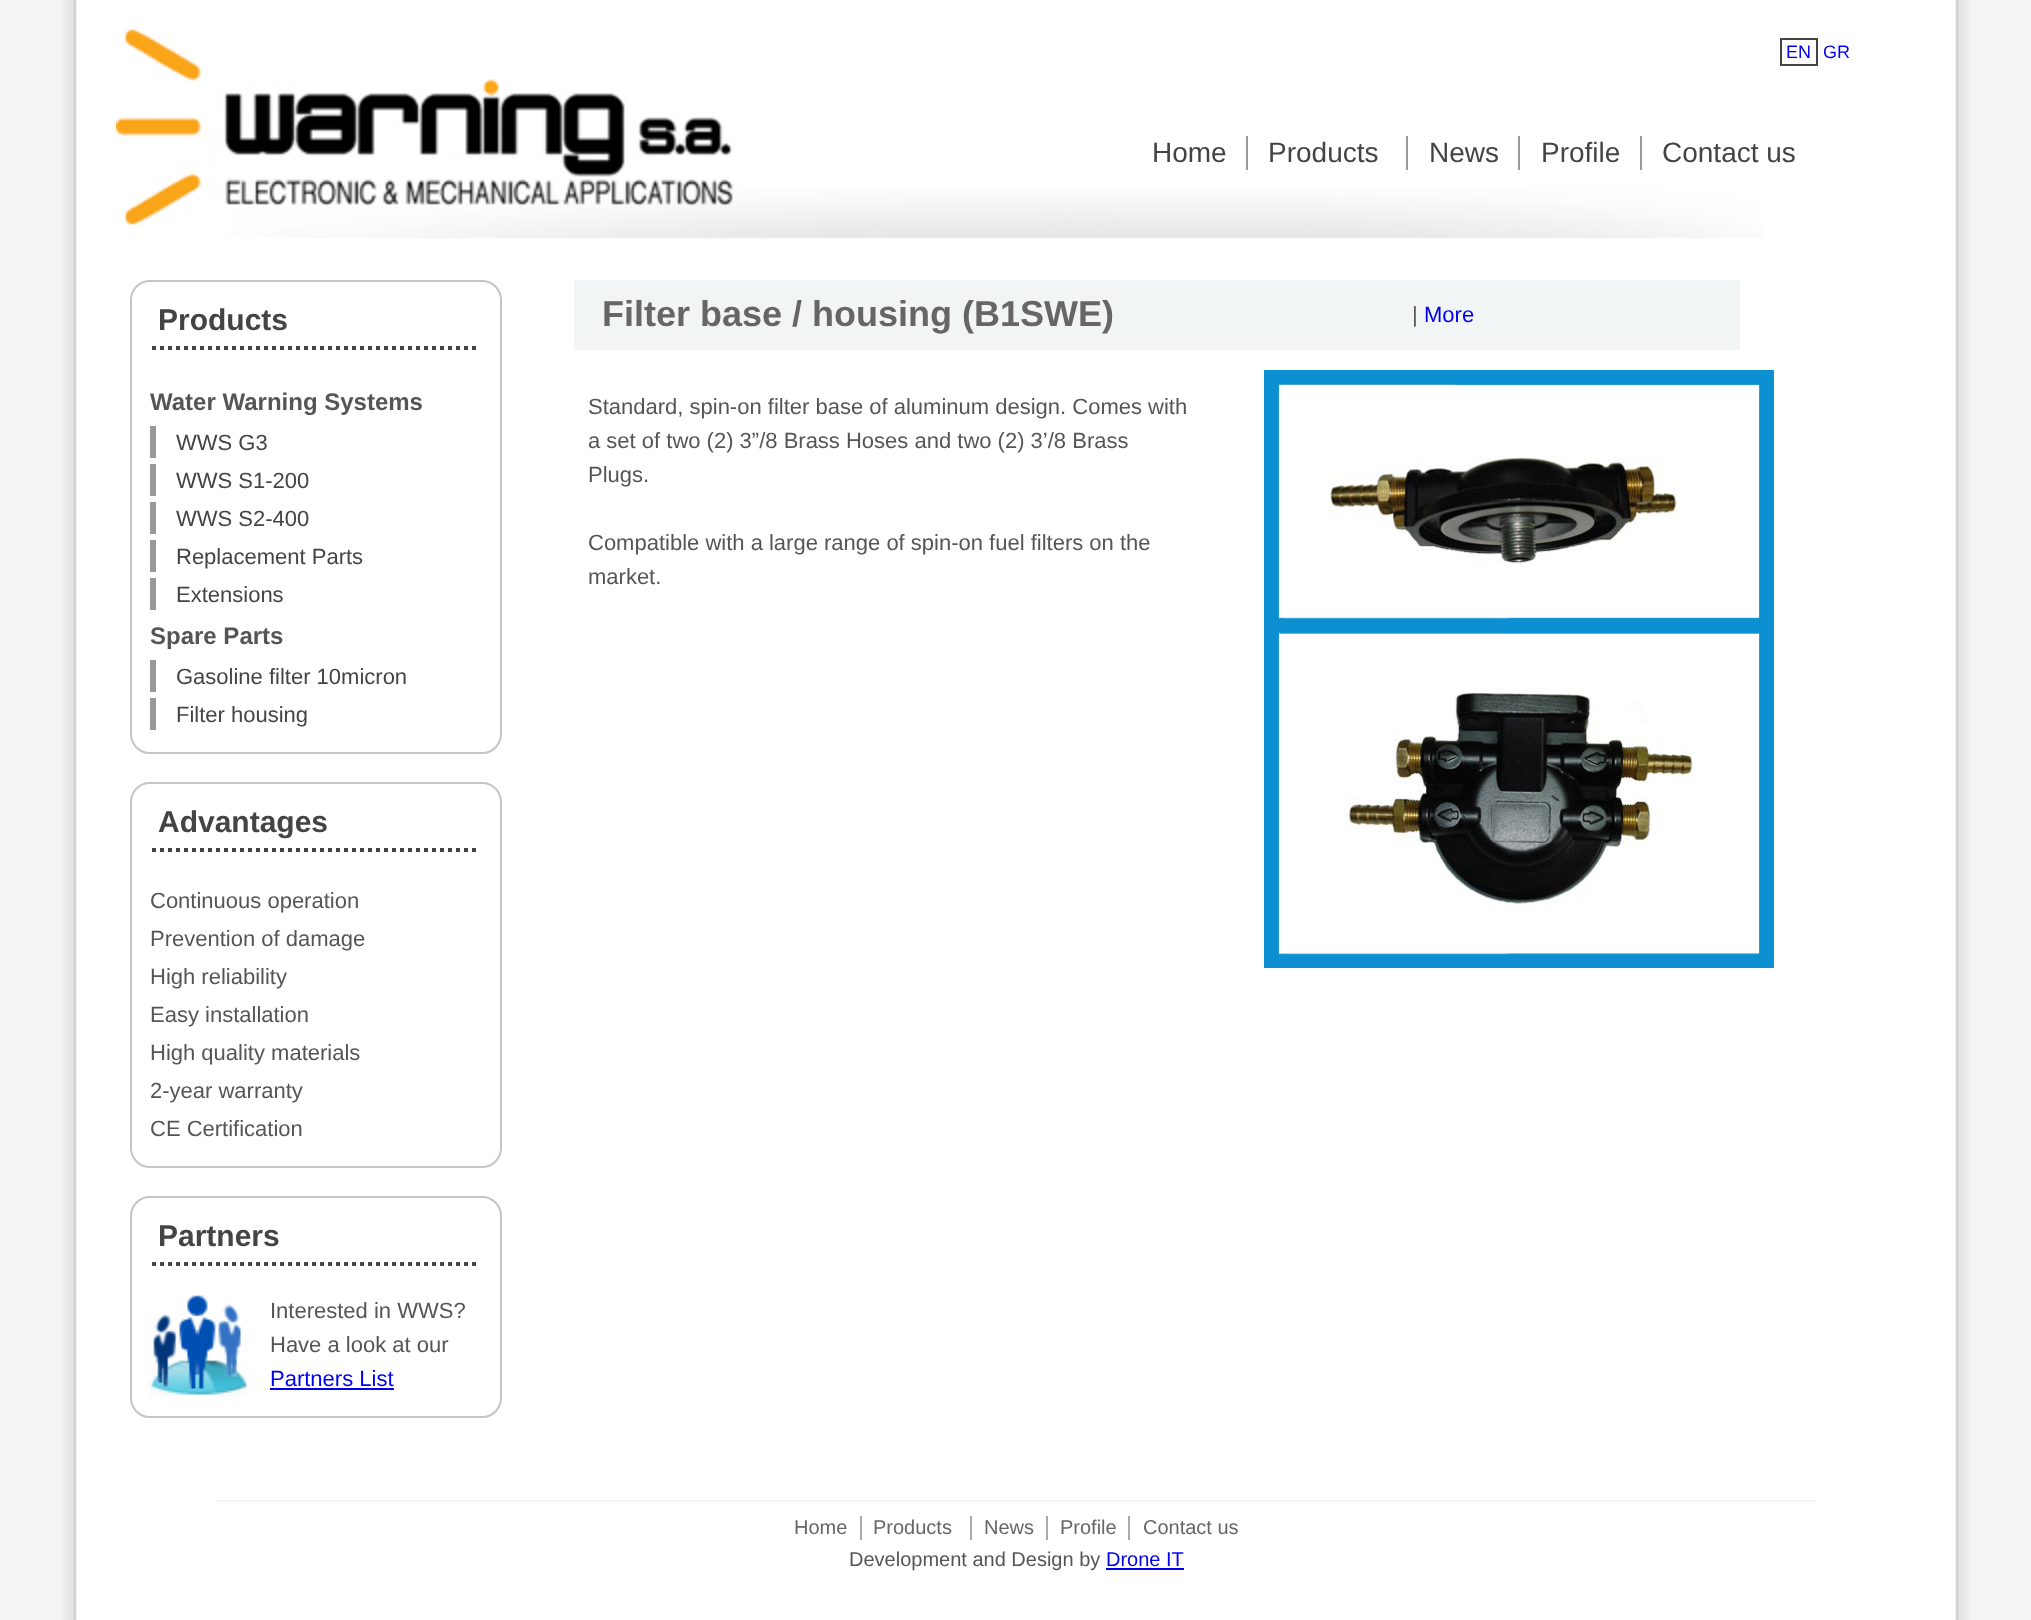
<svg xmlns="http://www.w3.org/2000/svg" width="2031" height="1620">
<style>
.a{font:18px Liberation Sans;fill:#00e}
.b{font:28px Liberation Sans;fill:#444}
.c{font:bold 30px Liberation Sans;fill:#444}
.d{font:bold 24px Liberation Sans;fill:#555}
.e{font:22px Liberation Sans;fill:#444}
.f{font:22px Liberation Sans;fill:#555}
.g{font:22px Liberation Sans;fill:#00e}
.h{font:bold 36px Liberation Sans;fill:#666}
.i{font:20px Liberation Sans;fill:#666}
.j{font:20px Liberation Sans;fill:#555}
.k{font:20px Liberation Sans;fill:#00e}
</style>
<rect width="100%" height="100%" fill="#f4f4f4"/>
<image href="1.png" x="63" y="0" width="1906" height="1620"/>
<image href="2.png" x="116" y="29" width="1647" height="210"/>
<path fill="none" stroke="#444" stroke-width="2" d="M1781 39h36v26H1781z"/>
<path fill="#999" d="M1246 136h2v34H1246z"/>
<path fill="#999" d="M1406 136h2v34H1406z"/>
<path fill="#999" d="M1518 136h2v34H1518z"/>
<path fill="#999" d="M1640 136h2v34H1640z"/>
<rect fill="none" stroke="#c5c5c5" stroke-width="2" x="131" y="281" width="370" height="472" rx="19"/>
<path fill="none" stroke="#444" stroke-width="4" stroke-dasharray="4 4" d="M152 348h328"/>
<path fill="#999" d="M150 426h6v32H150z"/>
<path fill="#999" d="M150 464h6v32H150z"/>
<path fill="#999" d="M150 502h6v32H150z"/>
<path fill="#999" d="M150 540h6v32H150z"/>
<path fill="#999" d="M150 578h6v32H150z"/>
<path fill="#999" d="M150 660h6v32H150z"/>
<path fill="#999" d="M150 698h6v32H150z"/>
<rect fill="none" stroke="#c5c5c5" stroke-width="2" x="131" y="783" width="370" height="384" rx="19"/>
<path fill="none" stroke="#444" stroke-width="4" stroke-dasharray="4 4" d="M152 850h328"/>
<rect fill="none" stroke="#c5c5c5" stroke-width="2" x="131" y="1197" width="370" height="220" rx="19"/>
<path fill="none" stroke="#444" stroke-width="4" stroke-dasharray="4 4" d="M152 1264h328"/>
<image href="3.png" x="150" y="1295" width="97" height="101"/>
<path fill="#00e" d="M270 1388h124v2H270z"/>
<path fill="#f2f5f6" d="M574 280h1166v70H574z"/>
<image href="4.png" x="1264" y="370" width="510" height="598"/>
<path fill="#f4f4f4" d="M216 1500h1600v2H216z"/>
<path fill="#aaa" d="M860 1516h2v24H860z"/>
<path fill="#aaa" d="M970 1516h2v24H970z"/>
<path fill="#aaa" d="M1046 1516h2v24H1046z"/>
<path fill="#aaa" d="M1128 1516h2v24H1128z"/>
<path fill="#00e" d="M1106 1568h78v2H1106z"/>
<text class="a" x="1786" y="58">EN</text>
<text class="a" x="1823" y="58">GR</text>
<text class="b" x="1152" y="162">Home</text>
<text class="b" x="1268" y="162">Products</text>
<text class="b" x="1429" y="162">News</text>
<text class="b" x="1541" y="162">Profile</text>
<text class="b" x="1662" y="162">Contact us</text>
<text class="c" x="158" y="330">Products</text>
<text class="d" x="150" y="410">Water Warning Systems</text>
<text class="e" x="176" y="450">WWS G3</text>
<text class="e" x="176" y="488">WWS S1-200</text>
<text class="e" x="176" y="526">WWS S2-400</text>
<text class="e" x="176" y="564">Replacement Parts</text>
<text class="e" x="176" y="602">Extensions</text>
<text class="d" x="150" y="644">Spare Parts</text>
<text class="e" x="176" y="684">Gasoline filter 10micron</text>
<text class="e" x="176" y="722">Filter housing</text>
<text class="c" x="158" y="832">Advantages</text>
<text class="f" x="150" y="908">Continuous operation</text>
<text class="f" x="150" y="946">Prevention of damage</text>
<text class="f" x="150" y="984">High reliability</text>
<text class="f" x="150" y="1022">Easy installation</text>
<text class="f" x="150" y="1060">High quality materials</text>
<text class="f" x="150" y="1098">2-year warranty</text>
<text class="f" x="150" y="1136">CE Certification</text>
<text class="c" x="158" y="1246">Partners</text>
<text class="f" x="270" y="1318">Interested in WWS?</text>
<text class="f" x="270" y="1352">Have a look at our</text>
<text class="g" x="270" y="1386">Partners List</text>
<text class="h" x="602" y="326">Filter base / housing (B1SWE)</text>
<text class="f" x="1412" y="322">|</text>
<text class="g" x="1424" y="322">More</text>
<text class="f" x="588" y="414">Standard, spin-on filter base of aluminum design. Comes with</text>
<text class="f" x="588" y="448">a set of two (2) 3”/8 Brass Hoses and two (2) 3’/8 Brass</text>
<text class="f" x="588" y="482">Plugs.</text>
<text class="f" x="588" y="550">Compatible with a large range of spin-on fuel filters on the</text>
<text class="f" x="588" y="584">market.</text>
<text class="i" x="794" y="1534">Home</text>
<text class="i" x="873" y="1534">Products</text>
<text class="i" x="984" y="1534">News</text>
<text class="i" x="1060" y="1534">Profile</text>
<text class="i" x="1143" y="1534">Contact us</text>
<text class="j" x="849" y="1566">Development and Design by</text>
<text class="k" x="1106" y="1566">Drone IT</text>
</svg>
